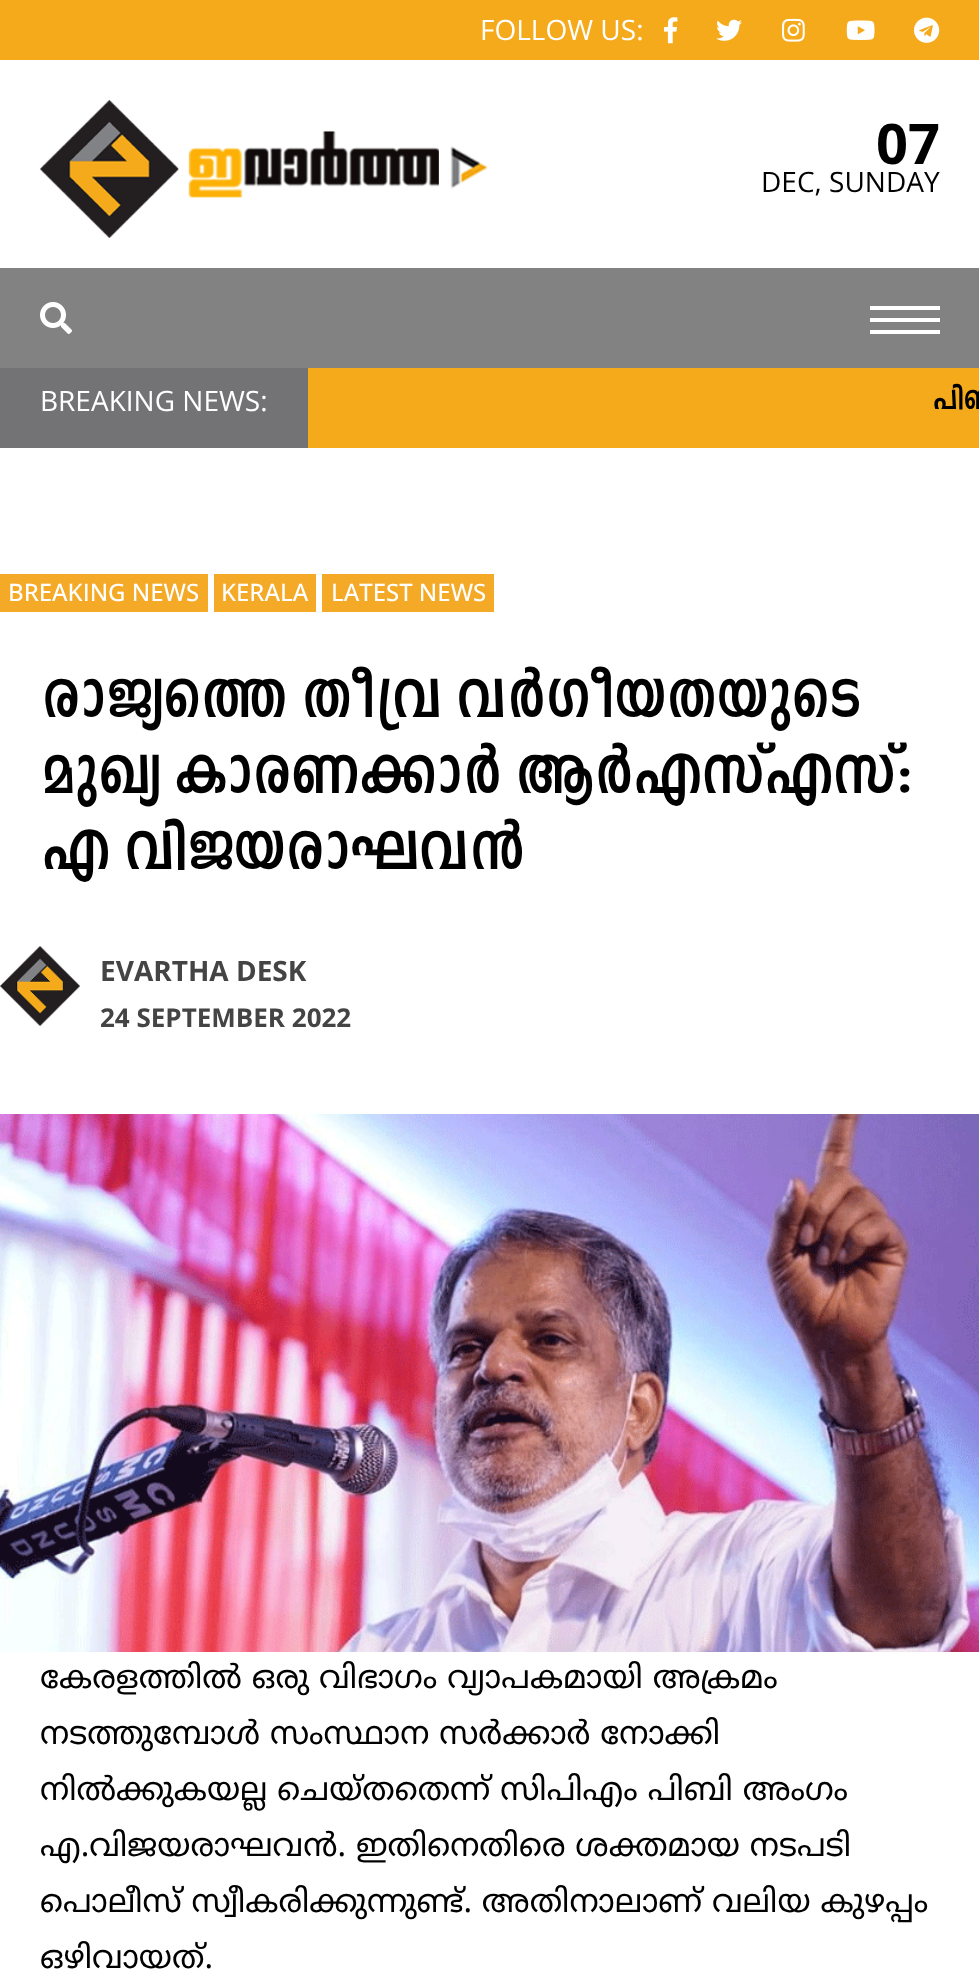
<svg xmlns="http://www.w3.org/2000/svg" width="979" height="1986">
<style>
.a{font:28px Open Sans;fill:#fff}
.b{font:bold 56px Open Sans;fill:#000}
.c{font:28px Open Sans;fill:#000}
.d{font:bold 40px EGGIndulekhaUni;fill:#000}
.e{font:500 24px Open Sans;fill:#fff}
.f{font:bold 80px EGGIndulekhaUni;fill:#000}
.g{font:bold 28px Open Sans;fill:#444}
.h{font:bold 26px Open Sans;fill:#444}
.i{font:32px Noto Sans Malayalam;fill:#000}
</style>
<rect width="100%" height="100%" fill="#fff"/>
<path fill="#f5aa1b" d="M0 0h979v60H0z"/>
<image href="1.png" x="664" y="17" width="14" height="27"/>
<image href="2.png" x="716" y="19" width="26" height="22"/>
<image href="3.png" x="782" y="18" width="23" height="24"/>
<image href="4.png" x="846" y="20" width="29" height="20"/>
<image href="5.png" x="914" y="17" width="26" height="26"/>
<image href="6.png" x="40" y="100" width="448" height="138"/>
<path fill="#828282" d="M0 268h979v100H0z"/>
<image href="7.png" x="40" y="302" width="32" height="32"/>
<path fill="#fff" d="M870 306h70v4H870z"/>
<path fill="#fff" d="M870 318h70v4H870z"/>
<path fill="#fff" d="M870 330h70v4H870z"/>
<path fill="#f5aa1b" d="M308 368h671v80H308z"/>
<path fill="#737376" d="M0 368h308v80H0z"/>
<path fill="#f5aa27" d="M0 574h208v38H0z"/>
<path fill="#f5aa27" d="M214 574h102v38H214z"/>
<path fill="#f5aa27" d="M322 574h172v38H322z"/>
<image href="8.png" x="0" y="946" width="80" height="80"/>
<image href="9.png" x="0" y="1114" width="979" height="538"/>
<text class="a" x="480" y="40">FOLLOW US:</text>
<text class="b" x="876" y="164">07</text>
<text class="c" x="761" y="192">DEC, SUNDAY</text>
<text class="a" x="40" y="411">BREAKING NEWS:</text>
<text class="d" x="932" y="409">പിണ</text>
<text class="e" x="8" y="601">BREAKING NEWS</text>
<text class="e" x="221" y="601">KERALA</text>
<text class="e" x="331" y="601">LATEST NEWS</text>
<text class="f" x="40" y="717">രാജ്യത്തെ തീവ്ര വർഗീയതയുടെ</text>
<text class="f" x="40" y="793">മുഖ്യ കാരണക്കാർ ആർഎസ്എസ്:</text>
<text class="f" x="40" y="869">എ വിജയരാഘവൻ</text>
<text class="g" x="100" y="981">EVARTHA DESK</text>
<text class="h" x="100" y="1027">24 SEPTEMBER 2022</text>
<text class="i" x="40" y="1688">കേരളത്തിൽ ഒരു വിഭാഗം വ്യാപകമായി അക്രമം</text>
<text class="i" x="40" y="1744">നടത്തുമ്പോൾ സംസ്ഥാന സർക്കാർ നോക്കി</text>
<text class="i" x="40" y="1800">നിൽക്കുകയല്ല ചെയ്തതെന്ന് സിപിഎം പിബി അംഗം</text>
<text class="i" x="40" y="1856">എ.വിജയരാഘവൻ. ഇതിനെതിരെ ശക്തമായ നടപടി</text>
<text class="i" x="40" y="1912">പൊലീസ് സ്വീകരിക്കുന്നുണ്ട്. അതിനാലാണ് വലിയ കുഴപ്പം</text>
<text class="i" x="40" y="1968">ഒഴിവായത്.</text>
</svg>
